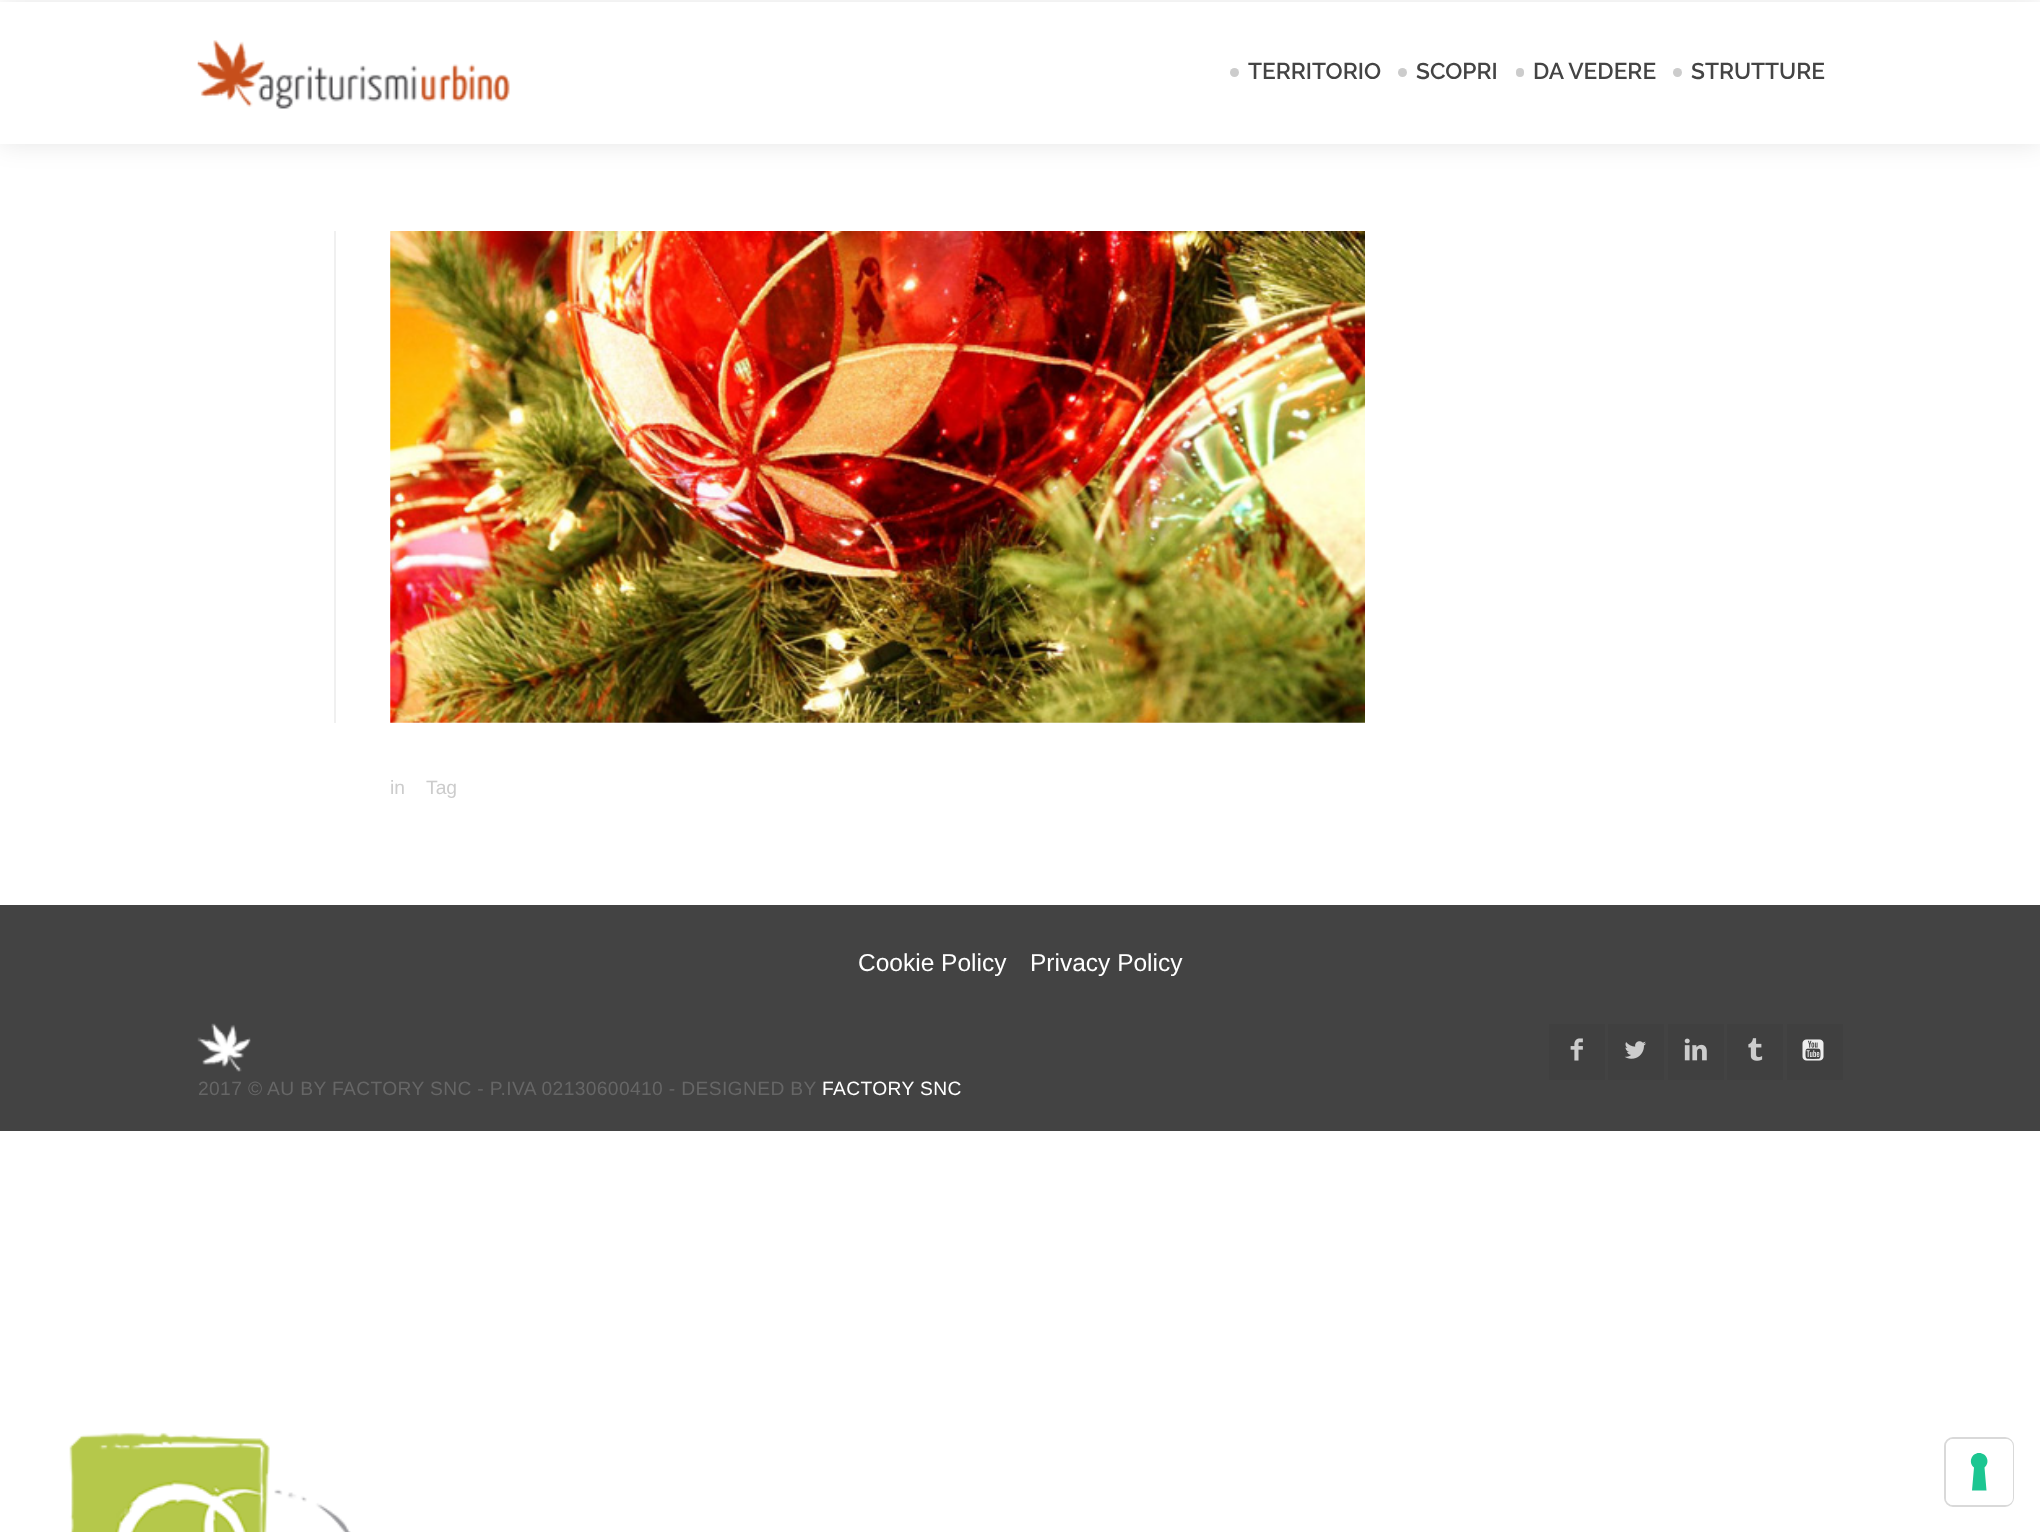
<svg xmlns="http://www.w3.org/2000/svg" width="2040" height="1532">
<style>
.a{font:100 22.75px Raleway;fill:#444}
.b{font:19.25px Liberation Sans;fill:#ccc}
.c{font:24.5px Liberation Sans;fill:#fff}
.d{font:19.25px Liberation Sans;letter-spacing:0.35px;fill:#666}
.e{font:19.25px Liberation Sans;letter-spacing:0.35px;fill:#fff}
</style>
<rect width="100%" height="100%" fill="#fff"/>
<path fill="#0000001a" filter="blur(13px)" d="M0 2h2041v142H0z"/>
<path fill="#fff" d="M0 2h2040v142H0z"/>
<image href="1.png" x="197" y="40" width="313" height="69"/>
<circle fill="#ccc" cx="1234.5" cy="72.5" r="4.5"/>
<circle fill="#ccc" cx="1402.5" cy="72.5" r="4.5"/>
<rect fill="#ccc" x="1516" y="68" width="8" height="9" rx="4"/>
<circle fill="#ccc" cx="1677.5" cy="72.5" r="4.5"/>
<path fill="#f0f0f0" d="M334 231h2v492H334z"/>
<image href="2.png" x="390" y="231" width="975" height="492"/>
<path fill="#434343" d="M0 905h2040v226H0z"/>
<path fill="#404040" d="M1549 1024h56v56H1549z"/>
<image href="3.png" x="1570" y="1038" width="13" height="23"/>
<path fill="#404040" d="M1608 1024h56v56H1608z"/>
<image href="4.png" x="1624" y="1041" width="22" height="18"/>
<path fill="#404040" d="M1668 1024h56v56H1668z"/>
<image href="5.png" x="1684" y="1038" width="23" height="23"/>
<path fill="#404040" d="M1727 1024h56v56H1727z"/>
<image href="6.png" x="1748" y="1038" width="15" height="23"/>
<path fill="#404040" d="M1787 1024h56v56H1787z"/>
<image href="7.png" x="1802" y="1039" width="22" height="22"/>
<image href="8.png" x="197" y="1023" width="54" height="49"/>
<image href="9.png" x="69" y="1432" width="282" height="100"/>
<rect fill="none" stroke="#d9d9d9" stroke-width="2" x="1945" y="1438" width="68" height="68" rx="8"/>
<rect fill="#fff" x="1946" y="1439" width="67" height="66" rx="7"/>
<path fill="#1cc691" fill-rule="evenodd" d="M1979 1453c8 0 11.5 9.5 5.5 14.5l2 23h-14.5l2-23c-6-5-2.5-14.5 5-14.5z"/>
<text class="a" x="1248" y="79">TERRITORIO</text>
<text class="a" x="1416" y="79">SCOPRI</text>
<text class="a" x="1533" y="79">DA VEDERE</text>
<text class="a" x="1691" y="79">STRUTTURE</text>
<text class="b" x="390" y="794">in</text>
<text class="b" x="426" y="794">Tag</text>
<text class="c" x="858" y="971">Cookie Policy</text>
<text class="c" x="1030" y="971">Privacy Policy</text>
<text class="d" x="198" y="1095">2017 © AU BY FACTORY SNC - P.IVA 02130600410 - DESIGNED BY</text>
<text class="e" x="822" y="1095">FACTORY SNC</text>
</svg>
